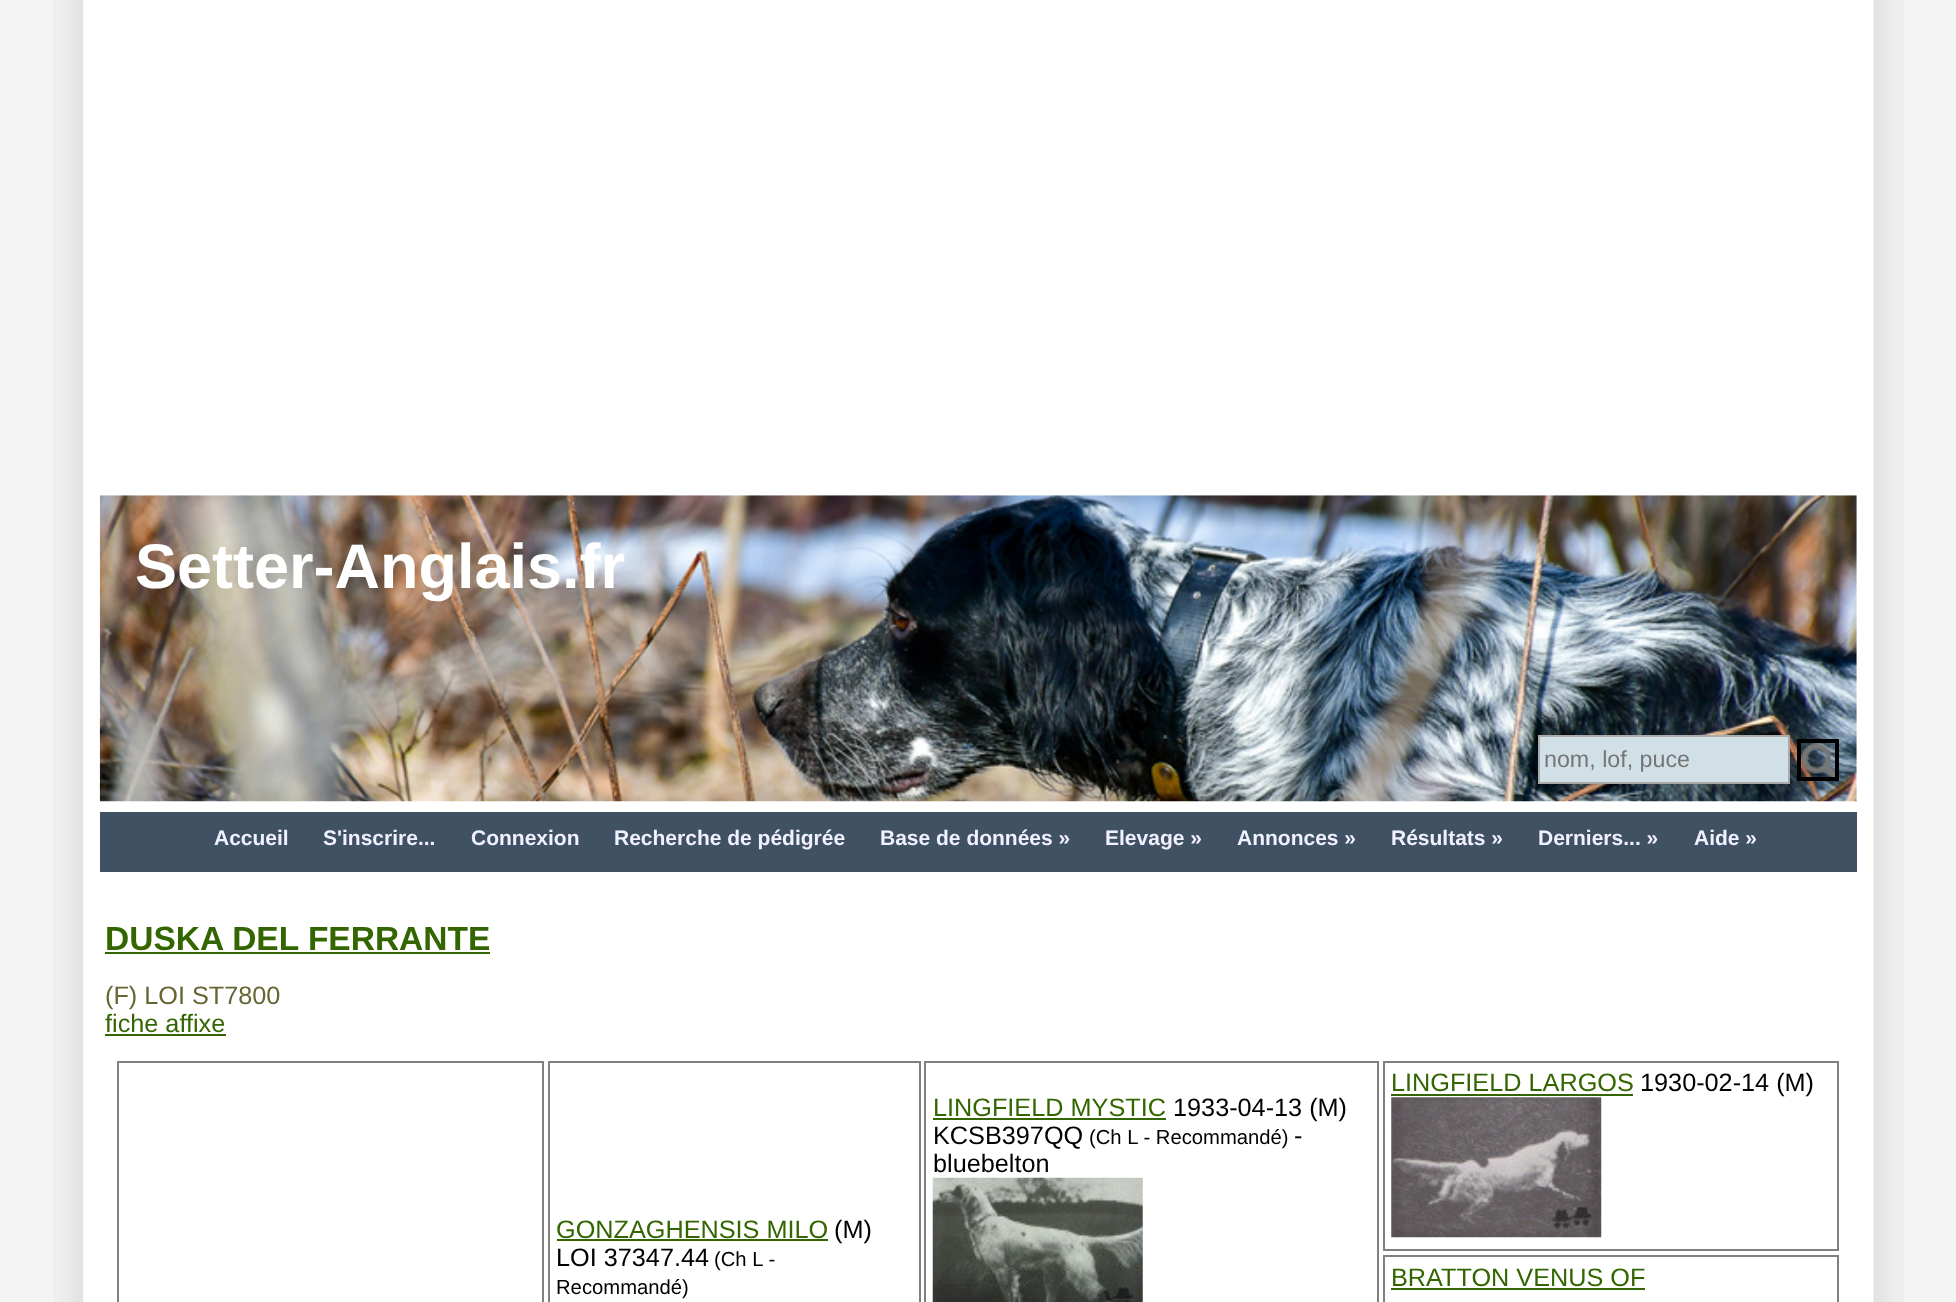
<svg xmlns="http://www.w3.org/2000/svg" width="1956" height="1302">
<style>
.a{font:bold 63px Liberation Sans;fill:#fff}
.b{font:23.25px Liberation Sans;fill:#757575}
.c{font:bold 21px Liberation Sans;fill:#f0f0ff}
.d{font:bold 33.5px Liberation Sans;fill:#360}
.e{font:25.25px Liberation Sans;fill:#663}
.f{font:25.25px Liberation Sans;fill:#360}
.g{font:25.25px Liberation Sans;fill:#000}
.h{font:20.25px Liberation Sans;fill:#000}
</style>
<rect width="100%" height="100%" fill="#f4f4f4"/>
<image href="1.png" x="53" y="0" width="1851" height="1302"/>
<image href="2.png" x="99" y="495" width="1758" height="307"/>
<path fill="#d1e0e7" stroke="#aaa" stroke-width="2" d="M1539 736h250v47H1539z"/>
<image href="3.png" x="1801" y="743" width="39" height="38"/>
<path fill="none" stroke="#000" stroke-width="4" d="M1799 741h38v38H1799z"/>
<path fill="#3f5163" d="M100 812h1757v60H100z"/>
<path fill="#360" d="M105 952h385v2H105z"/>
<path fill="#360" d="M105 1034h121v2H105z"/>
<path fill="none" stroke="#808080" stroke-width="2" d="M118 1062h425v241H118z"/>
<path fill="none" stroke="#808080" stroke-width="2" d="M1384 1062h454v188H1384z"/>
<path fill="#360" d="M1391 1094h242v2H1391z"/>
<image href="4.png" x="1391" y="1097" width="211" height="141"/>
<path fill="none" stroke="#808080" stroke-width="2" d="M925 1062h453v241H925z"/>
<path fill="#360" d="M933 1118h233v2H933z"/>
<image href="5.png" x="932" y="1177" width="211" height="125"/>
<path fill="none" stroke="#808080" stroke-width="2" d="M549 1062h371v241H549z"/>
<path fill="#360" d="M557 1239h271v2H557z"/>
<path fill="none" stroke="#808080" stroke-width="2" d="M1384 1256h454v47H1384z"/>
<path fill="#360" d="M1391 1288h254v2H1391z"/>
<text class="a" x="135" y="588">Setter-Anglais.fr</text>
<text class="b" x="1544" y="767">nom, lof, puce</text>
<text class="c" x="214" y="845">Accueil</text>
<text class="c" x="323" y="845">S'inscrire...</text>
<text class="c" x="471" y="845">Connexion</text>
<text class="c" x="614" y="845">Recherche de pédigrée</text>
<text class="c" x="880" y="845">Base de données »</text>
<text class="c" x="1105" y="845">Elevage »</text>
<text class="c" x="1237" y="845">Annonces »</text>
<text class="c" x="1391" y="845">Résultats »</text>
<text class="c" x="1538" y="845">Derniers... »</text>
<text class="c" x="1694" y="845">Aide »</text>
<text class="d" x="105" y="950">DUSKA DEL FERRANTE</text>
<text class="e" x="105" y="1004">(F) LOI ST7800</text>
<text class="f" x="105" y="1032">fiche affixe</text>
<text class="f" x="1391" y="1091">LINGFIELD LARGOS</text>
<text class="g" x="1640" y="1091">1930-02-14 (M)</text>
<text class="f" x="933" y="1116">LINGFIELD MYSTIC</text>
<text class="g" x="1173" y="1116">1933-04-13 (M)</text>
<text class="g" x="933" y="1144">KCSB397QQ</text>
<text class="h" x="1089" y="1144">(Ch L - Recommandé)</text>
<text class="g" x="1294" y="1144">-</text>
<text class="g" x="933" y="1172">bluebelton</text>
<text class="f" x="556" y="1238">GONZAGHENSIS MILO</text>
<text class="g" x="834" y="1238">(M)</text>
<text class="g" x="556" y="1266">LOI 37347.44</text>
<text class="h" x="714" y="1266">(Ch L -</text>
<text class="h" x="556" y="1294">Recommandé)</text>
<text class="f" x="1391" y="1286">BRATTON VENUS OF</text>
</svg>
